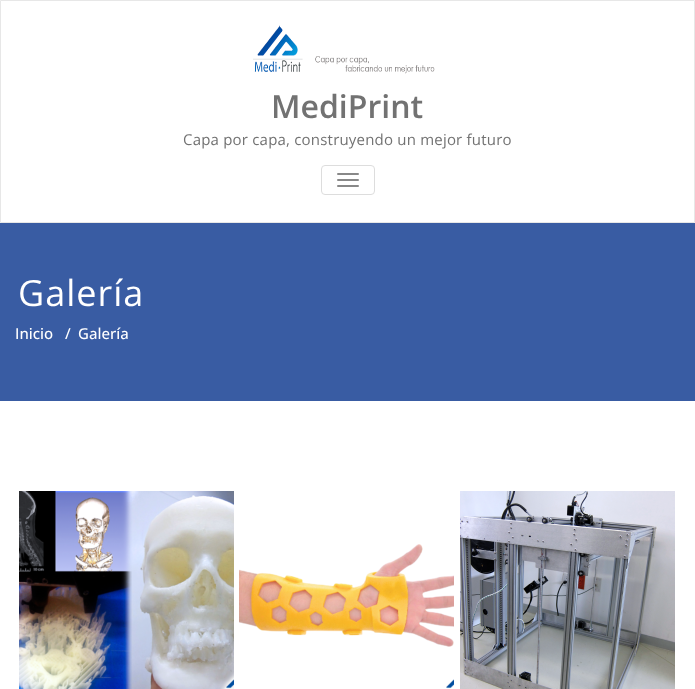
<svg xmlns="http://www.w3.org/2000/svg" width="695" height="689">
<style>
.a{font:600 32px Open Sans;fill:#727272}
.b{font:15px Open Sans;letter-spacing:0.2px;fill:#727272}
.c{font:36px Open Sans;letter-spacing:1px;fill:#fff}
.d{font:500 15px Open Sans;fill:#fff}
</style>
<rect width="100%" height="100%" fill="#fff"/>
<path fill="none" stroke="#e7e7e7" d="M0.5 0.5h694v222H0.5z"/>
<image href="1.png" x="253" y="25" width="182" height="49"/>
<rect fill="none" stroke="#ddd" x="321.5" y="165.5" width="53" height="29" rx="3.5"/>
<rect fill="#888" x="337" y="173" width="22" height="2" rx="1"/>
<rect fill="#888" x="337" y="179" width="22" height="2" rx="1"/>
<rect fill="#888" x="337" y="185" width="22" height="2" rx="1"/>
<path fill="#395ca3" d="M0 223h695v178H0z"/>
<image href="2.png" x="19" y="491" width="215" height="198"/>
<image href="3.png" x="239" y="544" width="215" height="145"/>
<image href="4.png" x="460" y="491" width="215" height="198"/>
<text class="a" x="271" y="118">MediPrint</text>
<text class="b" x="183" y="145">Capa por capa, construyendo un mejor futuro</text>
<text class="c" x="18" y="306">Galería</text>
<text class="d" x="15" y="339">Inicio</text>
<text class="d" x="65" y="339">/</text>
<text class="d" x="78" y="339">Galería</text>
</svg>
